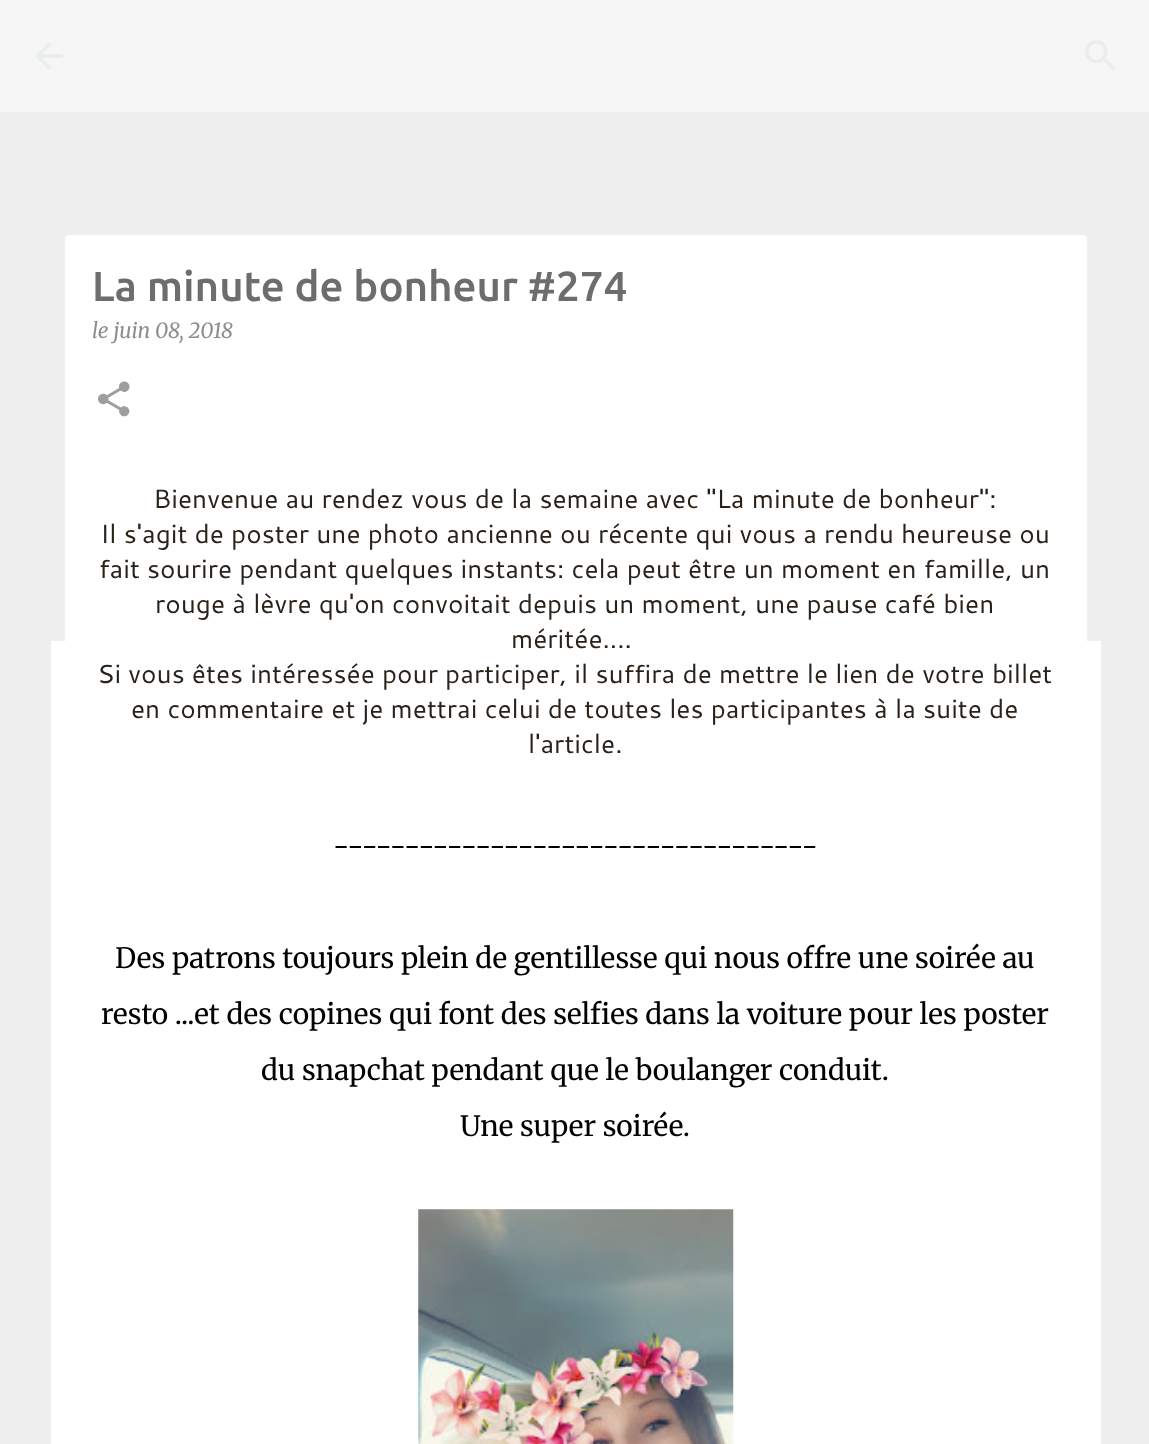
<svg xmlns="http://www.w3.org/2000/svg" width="1149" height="1444">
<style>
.a{font:500 42px Ubuntu;fill:#6d6d6d}
.b{font:italic 21px Merriweather;fill:#8e8e8e}
.c{font:26.25px Cantarell;fill:#2a221a}
.d{font:300 28px Merriweather;fill:#000}
</style>
<rect width="100%" height="100%" fill="#eee"/>
<path fill="#f6f6f6" d="M0 0h1149v112H0z"/>
<image href="1.png" x="35" y="42" width="28" height="28"/>
<image href="2.png" x="1085" y="40" width="31" height="31"/>
<path fill="#fff" d="M51 641h1050v803H51z"/>
<path fill="#fff" d="M69 235h1014c2 0 4 2 4 4v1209h-1022v-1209c0-2 2-4 4-4z"/>
<image href="3.png" x="98" y="381" width="32" height="36"/>
<image href="4.png" x="418" y="1209" width="316" height="235"/>
<text class="a" x="92" y="301">La minute de bonheur #274</text>
<text class="b" x="92" y="338">le juin 08, 2018</text>
<text class="c" x="153" y="508">Bienvenue au rendez vous de la semaine avec "La minute de bonheur":</text>
<text class="c" x="100" y="543">Il s'agit de poster une photo ancienne ou récente qui vous a rendu heureuse ou</text>
<text class="c" x="99" y="578">fait sourire pendant quelques instants: cela peut être un moment en famille, un</text>
<text class="c" x="155" y="613">rouge à lèvre qu'on convoitait depuis un moment, une pause café bien</text>
<text class="c" x="511" y="648">méritée....</text>
<text class="c" x="97" y="683">Si vous êtes intéressée pour participer, il suffira de mettre le lien de votre billet</text>
<text class="c" x="131" y="718">en commentaire et je mettrai celui de toutes les participantes à la suite de</text>
<text class="c" x="528" y="753">l'article.</text>
<text class="d" x="333" y="856">----------------------------------</text>
<text class="d" x="115" y="968">Des patrons toujours plein de gentillesse qui nous offre une soirée au</text>
<text class="d" x="101" y="1024">resto ...et des copines qui font des selfies dans la voiture pour les poster</text>
<text class="d" x="261" y="1080">du snapchat pendant que le boulanger conduit.</text>
<text class="d" x="460" y="1136">Une super soirée.</text>
</svg>
